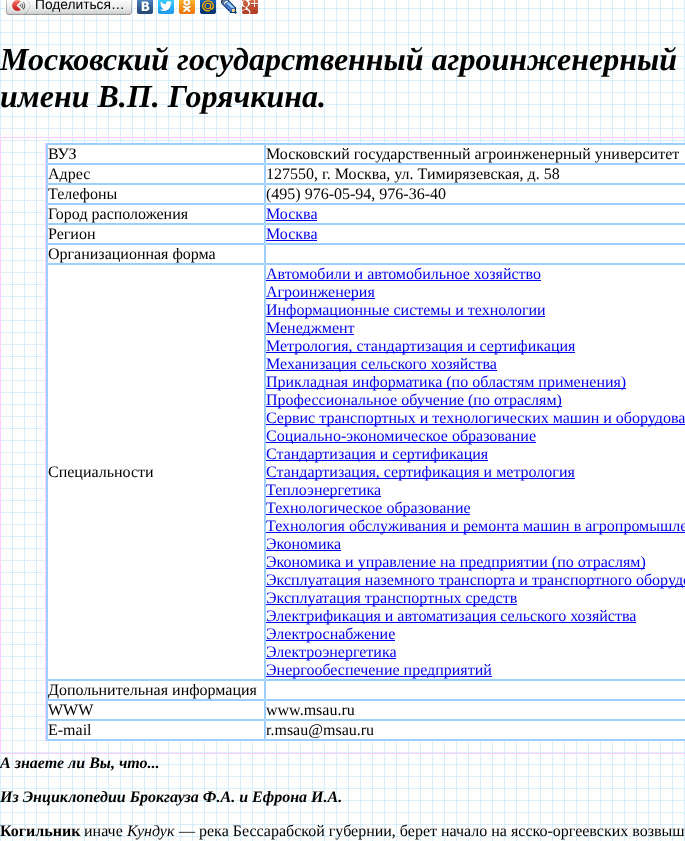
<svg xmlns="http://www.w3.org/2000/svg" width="685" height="841">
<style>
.a{font:13.75px Liberation Sans;fill:#000}
.b{font:italic bold 32px Liberation Serif;fill:#000}
.c{font:16px Liberation Serif;fill:#000}
.d{font:16px Liberation Serif;fill:#00e}
.e{font:italic bold 16px Liberation Serif;fill:#000}
.f{font:bold 16px Liberation Serif;fill:#000}
.g{font:italic 16px Liberation Serif;fill:#000}
</style>
<rect width="100%" height="100%" fill="#fff"/>
<image href="1.png" x="0" y="0" width="685" height="841"/>
<image href="2.png" x="9" y="0" width="120" height="15"/>
<image href="3.png" x="6" y="0" width="3" height="15"/>
<image href="4.png" x="12" y="0" width="20" height="14"/>
<image href="5.png" x="129" y="0" width="3" height="15"/>
<image href="6.png" x="137" y="0" width="16" height="14"/>
<image href="7.png" x="158" y="0" width="16" height="14"/>
<image href="8.png" x="179" y="0" width="16" height="14"/>
<image href="9.png" x="200" y="0" width="16" height="14"/>
<image href="10.png" x="221" y="0" width="16" height="14"/>
<image href="11.png" x="242" y="0" width="16" height="14"/>
<path fill="none" stroke="#ffceff" d="M0.5 137.5h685v616H0.5z"/>
<path fill="#fff" d="M48 145h637v594H48z"/>
<path fill="#ffceff" d="M45 143h1v598H45z"/>
<path fill="none" stroke="#9cceff" d="M46.5 143.5h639v597H46.5z"/>
<path fill="none" stroke="#9cceff" d="M47.5 144.5h217v19H47.5z"/>
<path fill="none" stroke="#9cceff" d="M265.5 144.5h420v19H265.5z"/>
<path fill="none" stroke="#9cceff" d="M47.5 164.5h217v19H47.5z"/>
<path fill="none" stroke="#9cceff" d="M265.5 164.5h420v19H265.5z"/>
<path fill="none" stroke="#9cceff" d="M47.5 184.5h217v19H47.5z"/>
<path fill="none" stroke="#9cceff" d="M265.5 184.5h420v19H265.5z"/>
<path fill="none" stroke="#9cceff" d="M47.5 204.5h217v19H47.5z"/>
<path fill="none" stroke="#9cceff" d="M265.5 204.5h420v19H265.5z"/>
<path fill="#00e" d="M266 220h51v1H266z"/>
<path fill="none" stroke="#9cceff" d="M47.5 224.5h217v19H47.5z"/>
<path fill="none" stroke="#9cceff" d="M265.5 224.5h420v19H265.5z"/>
<path fill="#00e" d="M266 240h51v1H266z"/>
<path fill="none" stroke="#9cceff" d="M47.5 244.5h217v19H47.5z"/>
<path fill="none" stroke="#9cceff" d="M265.5 244.5h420v19H265.5z"/>
<path fill="none" stroke="#9cceff" d="M47.5 264.5h217v415H47.5z"/>
<path fill="none" stroke="#9cceff" d="M265.5 264.5h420v415H265.5z"/>
<path fill="#00e" d="M266 280h275v1H266z"/>
<path fill="#00e" d="M266 298h109v1H266z"/>
<path fill="#00e" d="M266 316h279v1H266z"/>
<path fill="#00e" d="M266 334h88v1H266z"/>
<path fill="#00e" d="M266 352h309v1H266z"/>
<path fill="#00e" d="M266 370h231v1H266z"/>
<path fill="#00e" d="M266 388h360v1H266z"/>
<path fill="#00e" d="M266 406h296v1H266z"/>
<path fill="#00e" d="M266 424h419v1H266z"/>
<path fill="#00e" d="M266 442h270v1H266z"/>
<path fill="#00e" d="M266 460h222v1H266z"/>
<path fill="#00e" d="M266 478h309v1H266z"/>
<path fill="#00e" d="M266 496h115v1H266z"/>
<path fill="#00e" d="M266 514h204v1H266z"/>
<path fill="#00e" d="M266 532h419v1H266z"/>
<path fill="#00e" d="M266 550h75v1H266z"/>
<path fill="#00e" d="M266 568h379v1H266z"/>
<path fill="#00e" d="M266 586h419v1H266z"/>
<path fill="#00e" d="M266 604h251v1H266z"/>
<path fill="#00e" d="M266 622h370v1H266z"/>
<path fill="#00e" d="M266 640h129v1H266z"/>
<path fill="#00e" d="M266 658h130v1H266z"/>
<path fill="#00e" d="M266 676h226v1H266z"/>
<path fill="none" stroke="#9cceff" d="M47.5 680.5h217v19H47.5z"/>
<path fill="none" stroke="#9cceff" d="M265.5 680.5h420v19H265.5z"/>
<path fill="none" stroke="#9cceff" d="M47.5 700.5h217v19H47.5z"/>
<path fill="none" stroke="#9cceff" d="M265.5 700.5h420v19H265.5z"/>
<path fill="none" stroke="#9cceff" d="M47.5 720.5h217v19H47.5z"/>
<path fill="none" stroke="#9cceff" d="M265.5 720.5h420v19H265.5z"/>
<text class="a" x="35" y="9">Поделиться…</text>
<text class="b" x="0" y="70">Московский государственный агроинженерный</text>
<text class="b" x="0" y="107">имени В.П. Горячкина.</text>
<text class="c" x="48" y="159">ВУЗ</text>
<text class="c" x="266" y="159">Московский государственный агроинженерный университет</text>
<text class="c" x="48" y="179">Адрес</text>
<text class="c" x="266" y="179">127550, г. Москва, ул. Тимирязевская, д. 58</text>
<text class="c" x="48" y="199">Телефоны</text>
<text class="c" x="266" y="199">(495) 976-05-94, 976-36-40</text>
<text class="c" x="48" y="219">Город расположения</text>
<text class="d" x="266" y="219">Москва</text>
<text class="c" x="48" y="239">Регион</text>
<text class="d" x="266" y="239">Москва</text>
<text class="c" x="48" y="259">Организационная форма</text>
<text class="c" x="48" y="477">Специальности</text>
<text class="d" x="266" y="279">Автомобили и автомобильное хозяйство</text>
<text class="d" x="266" y="297">Агроинженерия</text>
<text class="d" x="266" y="315">Информационные системы и технологии</text>
<text class="d" x="266" y="333">Менеджмент</text>
<text class="d" x="266" y="351">Метрология, стандартизация и сертификация</text>
<text class="d" x="266" y="369">Механизация сельского хозяйства</text>
<text class="d" x="266" y="387">Прикладная информатика (по областям применения)</text>
<text class="d" x="266" y="405">Профессиональное обучение (по отраслям)</text>
<text class="d" x="266" y="423">Сервис транспортных и технологических машин и оборудова</text>
<text class="d" x="266" y="441">Социально-экономическое образование</text>
<text class="d" x="266" y="459">Стандартизация и сертификация</text>
<text class="d" x="266" y="477">Стандартизация, сертификация и метрология</text>
<text class="d" x="266" y="495">Теплоэнергетика</text>
<text class="d" x="266" y="513">Технологическое образование</text>
<text class="d" x="266" y="531">Технология обслуживания и ремонта машин в агропромышле</text>
<text class="d" x="266" y="549">Экономика</text>
<text class="d" x="266" y="567">Экономика и управление на предприятии (по отраслям)</text>
<text class="d" x="266" y="585">Эксплуатация наземного транспорта и транспортного оборудо</text>
<text class="d" x="266" y="603">Эксплуатация транспортных средств</text>
<text class="d" x="266" y="621">Электрификация и автоматизация сельского хозяйства</text>
<text class="d" x="266" y="639">Электроснабжение</text>
<text class="d" x="266" y="657">Электроэнергетика</text>
<text class="d" x="266" y="675">Энергообеспечение предприятий</text>
<text class="c" x="48" y="695">Допольнительная информация</text>
<text class="c" x="48" y="715">WWW</text>
<text class="c" x="266" y="715">www.msau.ru</text>
<text class="c" x="48" y="735">E-mail</text>
<text class="c" x="266" y="735">r.msau@msau.ru</text>
<text class="e" x="0" y="768">А знаете ли Вы, что...</text>
<text class="e" x="0" y="802">Из Энциклопедии Брокгауза Ф.А. и Ефрона И.А.</text>
<text class="f" x="0" y="836">Когильник</text>
<text class="c" x="84" y="836">иначе</text>
<text class="g" x="127" y="836">Кундук</text>
<text class="c" x="179" y="836">— река Бессарабской губернии, берет начало на ясско-оргеевских возвыш</text>
</svg>
